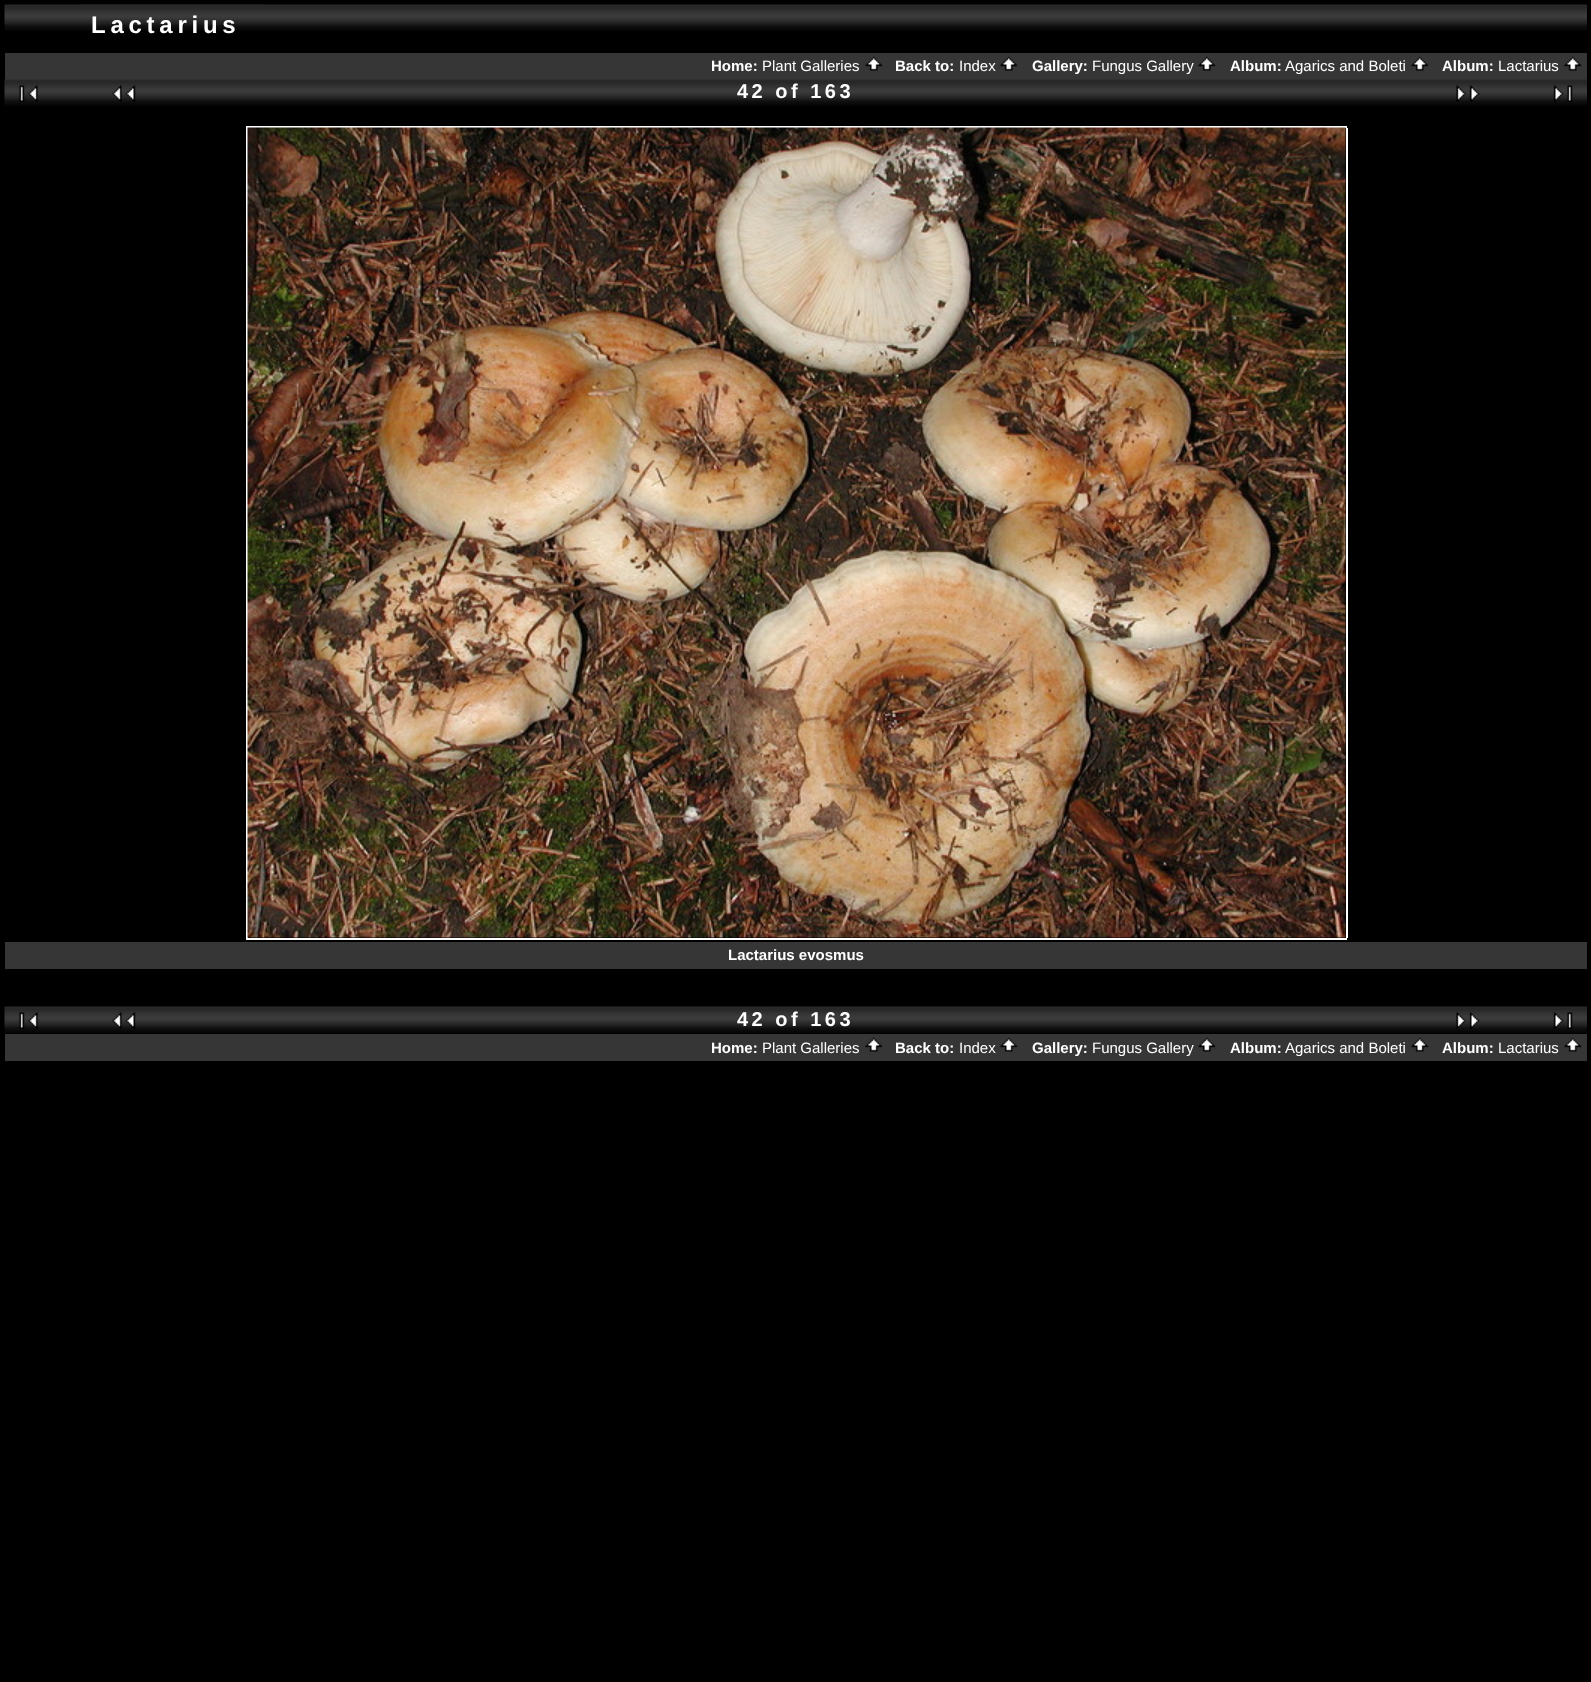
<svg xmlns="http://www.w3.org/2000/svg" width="1591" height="1682">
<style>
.a{font:bold 24px Liberation Sans;letter-spacing:4.75px;fill:#fff}
.b{font:bold 15px Liberation Sans;fill:#fff}
.c{font:15px Liberation Sans;fill:#fff}
.d{font:bold 20px Liberation Sans;letter-spacing:3.5px;fill:#fff}
</style>
<rect width="100%" height="100%" fill="#000"/>
<image href="1.png" x="4" y="4" width="1583" height="27"/>
<image href="2.png" x="79" y="4" width="185" height="1"/>
<path fill="#363636" d="M5 53h1582v27H5z"/>
<image href="3.png" x="865" y="56" width="18" height="15"/>
<image href="3.png" x="1000" y="56" width="18" height="15"/>
<image href="4.png" x="1198" y="56" width="18" height="15"/>
<image href="3.png" x="1411" y="56" width="18" height="15"/>
<image href="3.png" x="1564" y="56" width="18" height="15"/>
<image href="5.png" x="4" y="79" width="1583" height="27"/>
<image href="6.png" x="19" y="85" width="19" height="17"/>
<image href="7.png" x="112" y="85" width="24" height="17"/>
<image href="8.png" x="1456" y="85" width="24" height="17"/>
<image href="9.png" x="1553" y="85" width="20" height="17"/>
<path fill="#fff" d="M246 126h1101v2H246z"/>
<path fill="#fff" d="M246 128h2v810H246z"/>
<image href="10.png" x="247" y="127" width="1099" height="811"/>
<path fill="#fff" d="M1346 128h2v810H1346z"/>
<path fill="#fff" d="M246 938h1101v2H246z"/>
<path fill="#363636" d="M5 942h1582v27H5z"/>
<image href="11.png" x="4" y="1006" width="1583" height="27"/>
<image href="12.png" x="19" y="1012" width="19" height="17"/>
<image href="13.png" x="112" y="1012" width="24" height="17"/>
<image href="14.png" x="1456" y="1012" width="24" height="17"/>
<image href="15.png" x="1553" y="1012" width="20" height="17"/>
<path fill="#363636" d="M5 1034h1582v27H5z"/>
<image href="3.png" x="865" y="1037" width="18" height="15"/>
<image href="3.png" x="1000" y="1037" width="18" height="15"/>
<image href="4.png" x="1198" y="1037" width="18" height="15"/>
<image href="3.png" x="1411" y="1037" width="18" height="15"/>
<image href="3.png" x="1564" y="1037" width="18" height="15"/>
<text class="a" x="91" y="33">Lactarius</text>
<text class="b" x="711" y="71">Home:</text>
<text class="c" x="762" y="71">Plant Galleries</text>
<text class="b" x="895" y="71">Back to:</text>
<text class="c" x="959" y="71">Index</text>
<text class="b" x="1032" y="71">Gallery:</text>
<text class="c" x="1092" y="71">Fungus Gallery</text>
<text class="b" x="1230" y="71">Album:</text>
<text class="c" x="1285" y="71">Agarics and Boleti</text>
<text class="b" x="1442" y="71">Album:</text>
<text class="c" x="1498" y="71">Lactarius</text>
<text class="d" x="737" y="98">42 of 163</text>
<text class="b" x="728" y="960">Lactarius evosmus</text>
<text class="d" x="737" y="1026">42 of 163</text>
<text class="b" x="711" y="1053">Home:</text>
<text class="c" x="762" y="1053">Plant Galleries</text>
<text class="b" x="895" y="1053">Back to:</text>
<text class="c" x="959" y="1053">Index</text>
<text class="b" x="1032" y="1053">Gallery:</text>
<text class="c" x="1092" y="1053">Fungus Gallery</text>
<text class="b" x="1230" y="1053">Album:</text>
<text class="c" x="1285" y="1053">Agarics and Boleti</text>
<text class="b" x="1442" y="1053">Album:</text>
<text class="c" x="1498" y="1053">Lactarius</text>
</svg>
